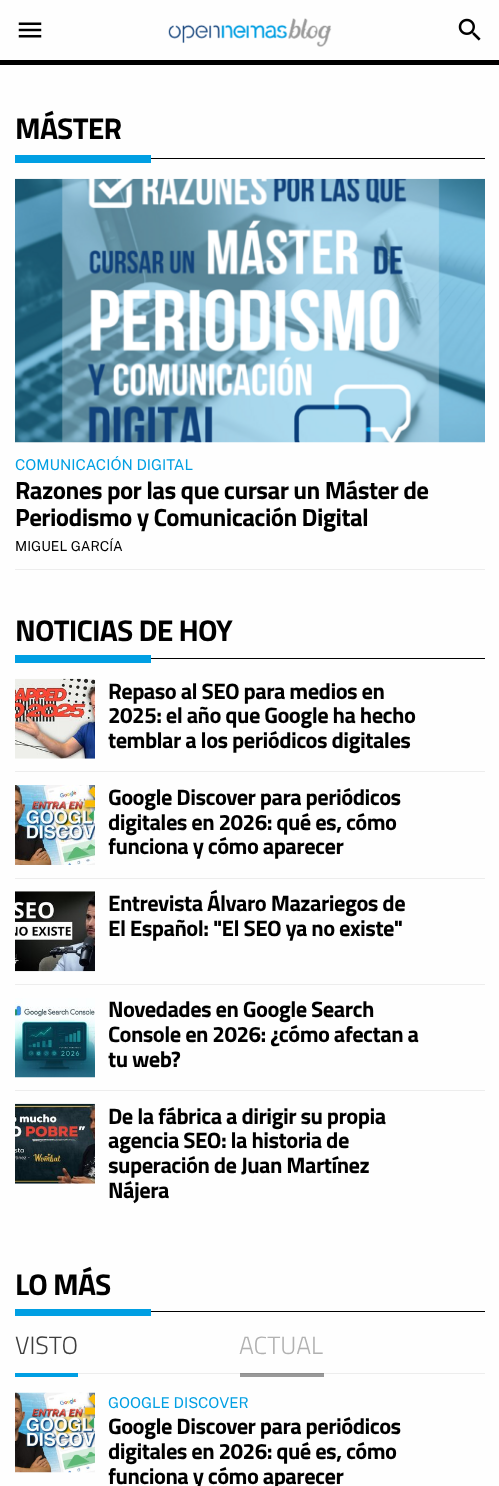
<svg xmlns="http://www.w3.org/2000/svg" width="499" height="1486">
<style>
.a{font:bold 30px Titillium Web;letter-spacing:-0.75px;fill:#000}
.b{font:100 15px Public Sans;fill:#009fe3}
.c{font:bold 25px Titillium Web;letter-spacing:-0.6px;fill:#000}
.d{font:100 13.75px Public Sans;fill:#000}
.e{font:bold 22.5px Titillium Web;letter-spacing:-0.55px;fill:#000}
.f{font:300 25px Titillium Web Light;fill:#3d3d3d}
.g{font:300 25px Titillium Web Light;fill:#b1b1b1}
</style>
<rect width="100%" height="100%" fill="#fefefe"/>
<path fill="#999" d="M240 1374h84v3H240z"/>
<path fill="#000" d="M0 60h499v5H0z"/>
<image href="1.png" x="18" y="22" width="24" height="16"/>
<image href="2.png" x="168" y="18" width="164" height="29"/>
<image href="3.png" x="458" y="18" width="23" height="23"/>
<path fill="#009fe3" d="M15 155h136v8H15z"/>
<path fill="#000" d="M151 158h334v1H151z"/>
<path fill="#ededed" d="M15 569h470v1H15z"/>
<image href="4.png" x="15" y="178" width="470" height="265"/>
<path fill="#009fe3" d="M15 655h136v8H15z"/>
<path fill="#000" d="M151 658h334v1H151z"/>
<path fill="#ededed" d="M15 771h470v1H15z"/>
<image href="5.png" x="15" y="678" width="80" height="81"/>
<path fill="#ededed" d="M15 878h470v1H15z"/>
<image href="6.png" x="15" y="785" width="80" height="80"/>
<path fill="#ededed" d="M15 984h470v1H15z"/>
<image href="7.png" x="15" y="891" width="80" height="81"/>
<path fill="#ededed" d="M15 1090h470v1H15z"/>
<image href="8.png" x="15" y="998" width="80" height="80"/>
<image href="9.png" x="15" y="1103" width="80" height="81"/>
<path fill="#009fe3" d="M15 1309h136v7H15z"/>
<path fill="#000" d="M151 1311h334v1H151z"/>
<path fill="#ededed" d="M78 1373h162v1H78z"/>
<path fill="#009fe3" d="M15 1373h63v4H15z"/>
<path fill="#ededed" d="M324 1373h161v1H324z"/>
<path fill="#8e8e8e" d="M240 1373h84v1H240z"/>
<image href="10.png" x="15" y="1392" width="80" height="81"/>
<text class="a" x="15" y="139">MÁSTER</text>
<text class="b" x="15" y="470">COMUNICACIÓN DIGITAL</text>
<text class="c" x="15" y="499">Razones por las que cursar un Máster de</text>
<text class="c" x="15" y="526">Periodismo y Comunicación Digital</text>
<text class="d" x="15" y="551">MIGUEL GARCÍA</text>
<text class="a" x="15" y="641">NOTICIAS DE HOY</text>
<text class="e" x="108" y="699">Repaso al SEO para medios en</text>
<text class="e" x="108" y="723">2025: el año que Google ha hecho</text>
<text class="e" x="108" y="748">temblar a los periódicos digitales</text>
<text class="e" x="108" y="805">Google Discover para periódicos</text>
<text class="e" x="108" y="830">digitales en 2026: qué es, cómo</text>
<text class="e" x="108" y="854">funciona y cómo aparecer</text>
<text class="e" x="108" y="911">Entrevista Álvaro Mazariegos de</text>
<text class="e" x="108" y="936">El Español: "El SEO ya no existe"</text>
<text class="e" x="108" y="1017">Novedades en Google Search</text>
<text class="e" x="108" y="1042">Console en 2026: ¿cómo afectan a</text>
<text class="e" x="108" y="1067">tu web?</text>
<text class="e" x="108" y="1124">De la fábrica a dirigir su propia</text>
<text class="e" x="108" y="1148">agencia SEO: la historia de</text>
<text class="e" x="108" y="1173">superación de Juan Martínez</text>
<text class="e" x="108" y="1198">Nájera</text>
<text class="a" x="15" y="1295">LO MÁS</text>
<text class="f" x="15" y="1354">VISTO</text>
<text class="g" x="239" y="1354">ACTUAL</text>
<text class="b" x="108" y="1408">GOOGLE DISCOVER</text>
<text class="e" x="108" y="1434">Google Discover para periódicos</text>
<text class="e" x="108" y="1459">digitales en 2026: qué es, cómo</text>
<text class="e" x="108" y="1484">funciona y cómo aparecer</text>
</svg>
